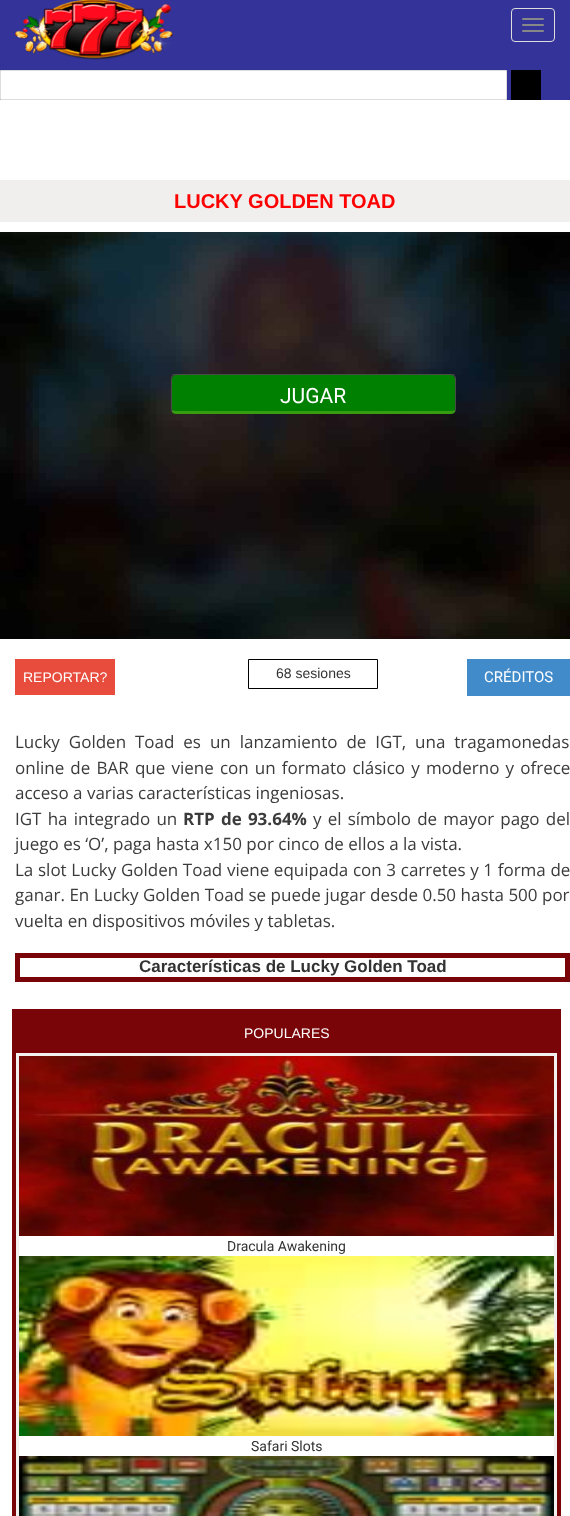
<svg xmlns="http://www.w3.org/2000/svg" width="570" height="1516">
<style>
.a{font:bold 20px Liberation Sans;fill:#f00}
.b{font:21px Roboto;fill:#fff}
.c{font:14px Liberation Sans;fill:#fff}
.d{font:14px Liberation Sans;fill:#333}
.e{font:15px Roboto;fill:#fff}
.f{font:17px Open Sans;fill:#3c3b3b}
.g{font:bold 17px Open Sans;fill:#3c3b3b}
.h{font:bold 17px Liberation Sans;fill:#333}
.i{font:14px Roboto;fill:#333}
</style>
<rect width="100%" height="100%" fill="#fff"/>
<path fill="#339" d="M0 0h570v100H0z"/>
<image href="1.png" x="15" y="0" width="158" height="60"/>
<rect fill="none" stroke="#ddd" x="511.5" y="8.5" width="43" height="33" rx="3.5"/>
<rect fill="#888" x="522" y="18" width="22" height="2" rx="1"/>
<rect fill="#888" x="522" y="24" width="22" height="2" rx="1"/>
<rect fill="#888" x="522" y="30" width="22" height="2" rx="1"/>
<path fill="#fff" stroke="#ddd" d="M0.5 70.5h506v29H0.5z"/>
<path fill="#000" d="M511 70h30v30H511z"/>
<path fill="#f1eeee" d="M0 180h570v42H0z"/>
<image href="2.png" x="0" y="232" width="570" height="407"/>
<path fill="#008000" d="M176 375h275c2 0 4 2 4 4v30c0 1-2 2-4 2h-275c-2 0-4-1-4-2v-30c0-2 2-4 4-4z"/>
<path fill="#494b49" d="M176 374c-2 0-3 0-4 1l1 1c1 0 2-1 3-1h275c1 0 2 1 3 1l1-1c-1-1-3-1-4-1z"/>
<path fill="#494b49" d="M456 409v-30c0-1.5-.5-3-1.5-3.5l-.5 .5l1 2.5v30.5l-.5 1l1 2c0-1 .5-2 .5-3z"/>
<path fill="#369d10" d="M176 414h275c2 0 3-1 4-2v-2c-1 0-3 1-4 1h-275c-1 0-3-1-4-1v2c1 1 2 2 4 2z"/>
<path fill="#494b49" d="M171 379v30c0 1 .5 2 .5 3l1-2l-.5-1v-30.5l1-2.5l-.5-.5c-1 .5-1.5 2-1.5 3.5z"/>
<path fill="#e74c3c" d="M15 659h100v36H15z"/>
<path fill="none" stroke="#000" d="M248.5 659.5h129v29H248.5z"/>
<path fill="#428bca" d="M467 659h103v37H467z"/>
<path fill="none" stroke="#7a0508" stroke-width="5" d="M17.5 955.5h550v24H17.5z"/>
<path fill="none" stroke="#7a0508" stroke-width="4" d="M14 1011h545v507H14z"/>
<path fill="#7a0508" d="M16 1013h541v40H16z"/>
<path fill="none" stroke="#f3f0f0" stroke-width="3" d="M17.5 1054.5h538v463H17.5z"/>
<image href="3.png" x="19" y="1056" width="535" height="180"/>
<image href="4.png" x="19" y="1256" width="535" height="180"/>
<image href="5.png" x="19" y="1456" width="535" height="60"/>
<text class="a" x="174" y="208">LUCKY GOLDEN TOAD</text>
<text class="b" x="280" y="403">JUGAR</text>
<text class="c" x="23" y="682">REPORTAR?</text>
<text class="d" x="276" y="678">68 sesiones</text>
<text class="e" x="484" y="682">CRÉDITOS</text>
<text class="f" x="15" y="748" word-spacing="4.5">Lucky Golden Toad es un lanzamiento de IGT, una tragamonedas</text>
<text class="f" x="15" y="774" word-spacing="1.75">online de BAR que viene con un formato clásico y moderno y ofrece</text>
<text class="f" x="15" y="799">acceso a varias características ingeniosas.</text>
<text class="f" x="15" y="825" word-spacing="1.75">IGT ha integrado un</text>
<text class="g" x="183" y="825" word-spacing="1.75">RTP de 93.64%</text>
<text class="f" x="313" y="825" word-spacing="1.75">y el símbolo de mayor pago del</text>
<text class="f" x="15" y="850">juego es ‘O’, paga hasta x150 por cinco de ellos a la vista.</text>
<text class="f" x="15" y="876" word-spacing="0.25">La slot Lucky Golden Toad viene equipada con 3 carretes y 1 forma de</text>
<text class="f" x="15" y="901">ganar. En Lucky Golden Toad se puede jugar desde 0.50 hasta 500 por</text>
<text class="f" x="15" y="927">vuelta en dispositivos móviles y tabletas.</text>
<text class="h" x="139" y="972">Características de Lucky Golden Toad</text>
<text class="c" x="244" y="1038">POPULARES</text>
<text class="i" x="227" y="1251">Dracula Awakening</text>
<text class="i" x="251" y="1451">Safari Slots</text>
</svg>
